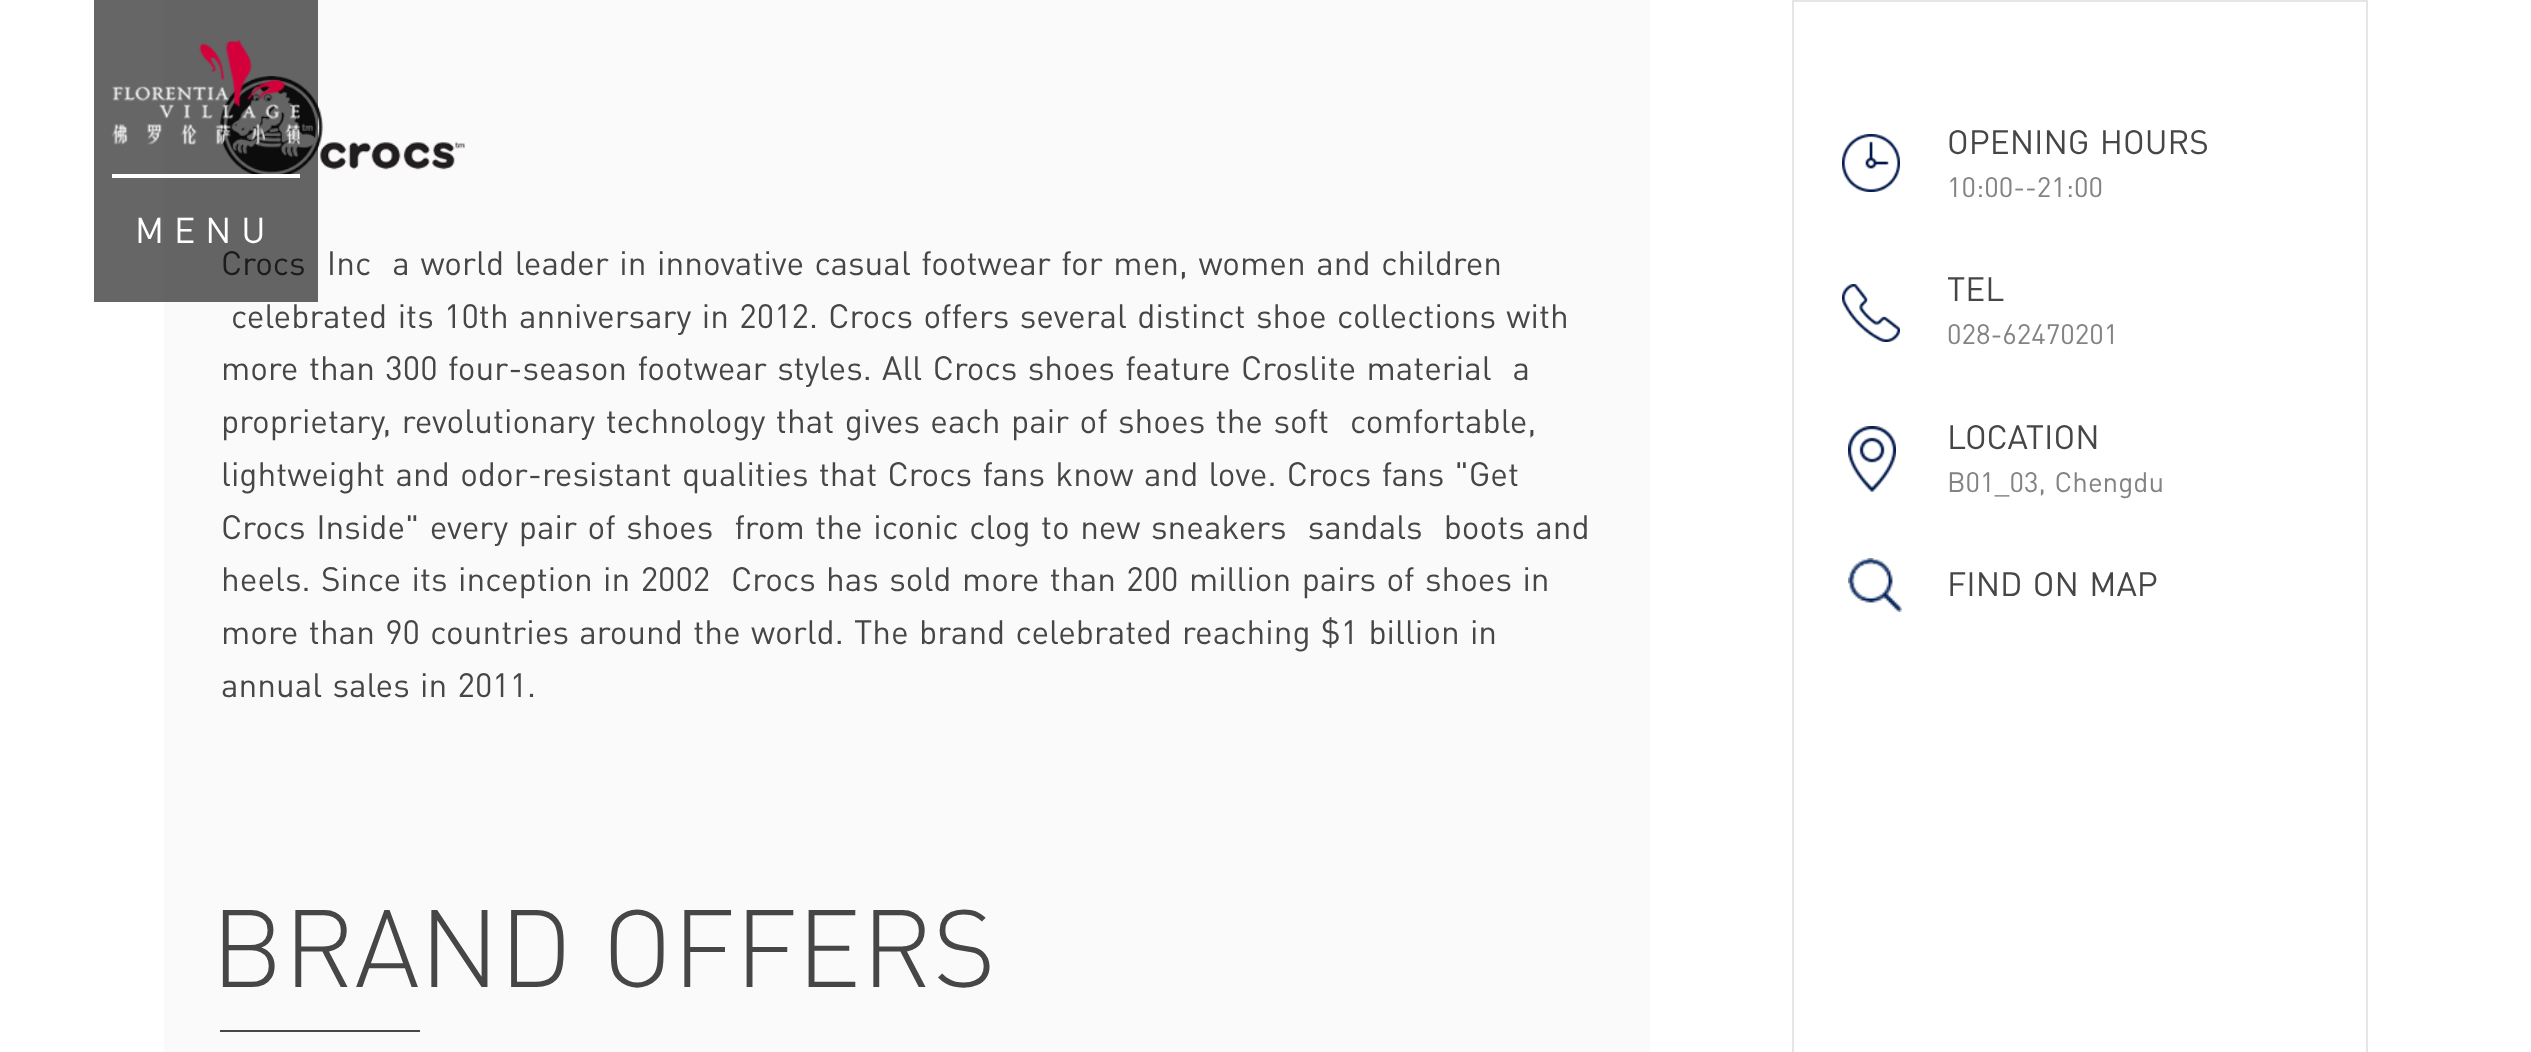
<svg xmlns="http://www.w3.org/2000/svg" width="2531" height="1052">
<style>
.a{font:33.35px DIN;fill:#464646}
.b{font:35.5px DIN;letter-spacing:10px;fill:#fff}
.c{font:300 108px DIN;fill:#464646}
.d{font:27.75px DIN;fill:#838383}
</style>
<rect width="100%" height="100%" fill="#fff"/>
<path fill="#fafafa" d="M164 0h1486v1052H164z"/>
<image href="2.png" x="220" y="76" width="245" height="98"/>
<path fill="#464646" d="M220 1030h200v2H220z"/>
<path fill="none" stroke="#e5e5e5" stroke-width="2" d="M1793 1h574v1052H1793z"/>
<image href="3.png" x="1842" y="134" width="58" height="58"/>
<image href="4.png" x="1842" y="284" width="58" height="58"/>
<image href="5.png" x="1848" y="426" width="48" height="66"/>
<image href="6.png" x="1848" y="558" width="54" height="54"/>
<text class="a" xml:space="preserve" x="221" y="275" word-spacing="2.25">Crocs  Inc  a world leader in innovative casual footwear for men, women and children</text>
<path fill="#00000099" d="M94 0h224v302H94z"/>
<text class="b" x="135" y="243">MENU</text>
<image href="1.png" x="111" y="40" width="189" height="105"/>
<path fill="#fff" d="M112 174h188v4H112z"/>
<text class="a" x="231" y="328" word-spacing="2.1">celebrated its 10th anniversary in 2012. Crocs offers several distinct shoe collections with</text>
<text class="a" xml:space="preserve" x="221" y="380" word-spacing="2.1">more than 300 four-season footwear styles. All Crocs shoes feature Croslite material  a</text>
<text class="a" xml:space="preserve" x="221" y="433" word-spacing="2.1">proprietary, revolutionary technology that gives each pair of shoes the soft  comfortable,</text>
<text class="a" x="221" y="486" word-spacing="2">lightweight and odor-resistant qualities that Crocs fans know and love. Crocs fans "Get</text>
<text class="a" xml:space="preserve" x="221" y="539" word-spacing="2.25">Crocs Inside" every pair of shoes  from the iconic clog to new sneakers  sandals  boots and</text>
<text class="a" xml:space="preserve" x="221" y="591" word-spacing="2.1">heels. Since its inception in 2002  Crocs has sold more than 200 million pairs of shoes in</text>
<text class="a" x="221" y="644" word-spacing="2">more than 90 countries around the world. The brand celebrated reaching $1 billion in</text>
<text class="a" x="221" y="697" word-spacing="2">annual sales in 2011.</text>
<text class="c" x="211" y="987" word-spacing="2">BRAND OFFERS</text>
<text class="a" x="1947" y="154" word-spacing="2">OPENING HOURS</text>
<text class="d" x="1947" y="197">10:00--21:00</text>
<text class="a" x="1947" y="301">TEL</text>
<text class="d" x="1947" y="344">028-62470201</text>
<text class="a" x="1947" y="449">LOCATION</text>
<text class="d" x="1947" y="492" word-spacing="2">B01_03, Chengdu</text>
<text class="a" x="1947" y="596" word-spacing="2">FIND ON MAP</text>
</svg>
